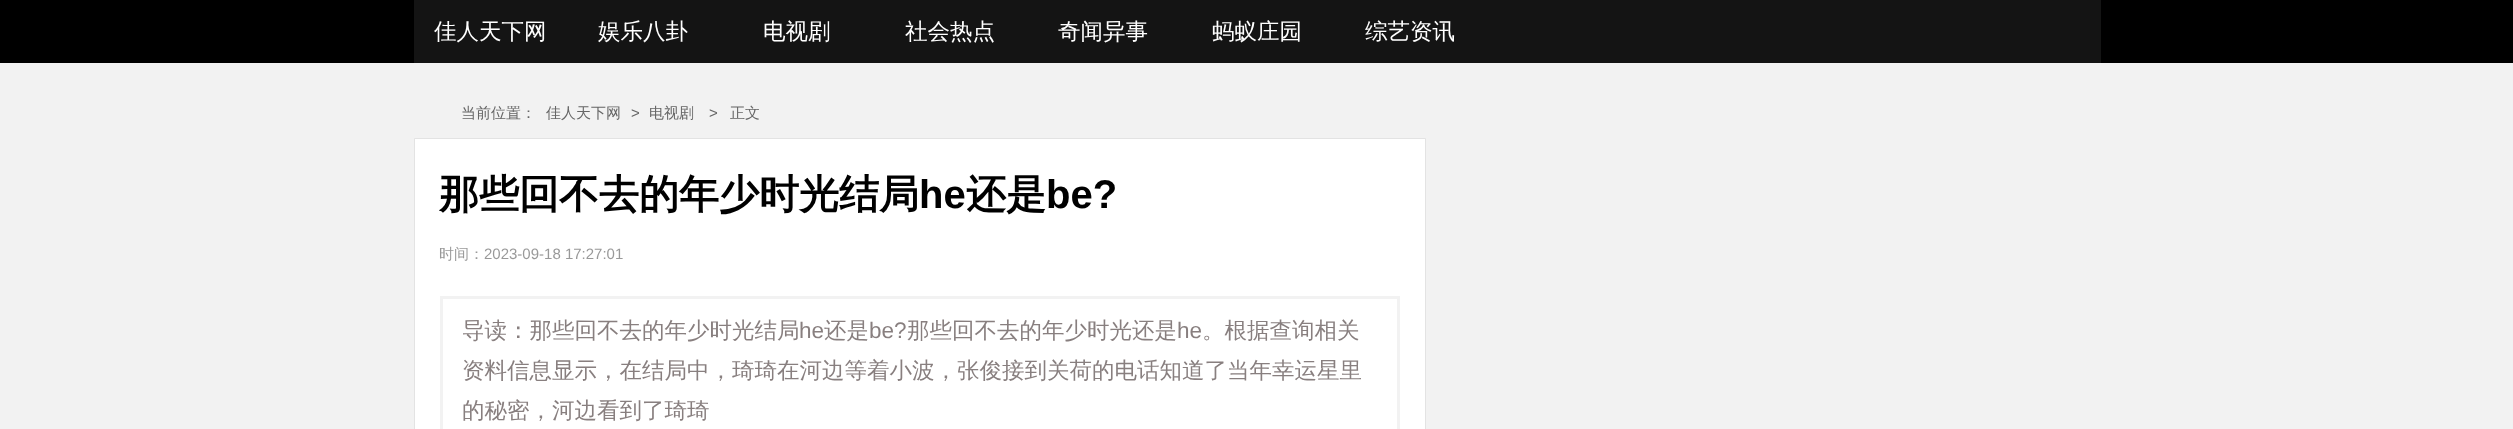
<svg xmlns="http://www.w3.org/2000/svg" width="2513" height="429">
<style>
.a{font:500 22.5px WenQuanYi Zen Hei;fill:#fff}
.b{font:500 15px WenQuanYi Zen Hei;fill:#666}
.c{font:15px Liberation Sans;fill:#666}
.d{font:bold 40px WenQuanYi Zen Hei;fill:#000}
.e{font:bold 40px Liberation Sans;fill:#000}
.f{font:500 15px WenQuanYi Zen Hei;fill:#999}
.g{font:15px Liberation Sans;fill:#999}
.h{font:500 22.5px WenQuanYi Zen Hei;fill:#887f7f}
.i{font:22.5px Liberation Sans;fill:#887f7f}
</style>
<rect width="100%" height="100%" fill="#f2f2f2"/>
<path fill="#000" d="M0 0h2513v63H0z"/>
<path fill="#141414" d="M414 0h1687v63H414z"/>
<path fill="#fff" stroke="#e3e3e3" d="M414.5 138.5h1011v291H414.5z"/>
<path fill="none" stroke="#f2f2f2" stroke-width="3" d="M441.5 297.5h957v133H441.5z"/>
<text class="a" x="434" y="39">佳人天下网</text>
<text class="a" x="598" y="39">娱乐八卦</text>
<text class="a" x="763" y="39">电视剧</text>
<text class="a" x="905" y="39">社会热点</text>
<text class="a" x="1058" y="39">奇闻异事</text>
<text class="a" x="1212" y="39">蚂蚁庄园</text>
<text class="a" x="1365" y="39">综艺资讯</text>
<text class="b" x="461" y="118">当前位置：</text>
<text class="b" x="546" y="118">佳人天下网</text>
<text class="c" x="631" y="118">&gt;</text>
<text class="b" x="649" y="118">电视剧</text>
<text class="c" x="709" y="118">&gt;</text>
<text class="b" x="730" y="118">正文</text>
<text class="d" x="439" y="208">那些回不去的年少时光结局</text>
<text class="e" x="919" y="208">he</text>
<text class="d" x="966" y="208">还是</text>
<text class="e" x="1046" y="208">be?</text>
<text class="f" x="439" y="259">时间：</text>
<text class="g" x="484" y="259">2023-09-18 17:27:01</text>
<text class="h" x="462" y="338">导读：那些回不去的年少时光结局</text>
<text class="i" x="799" y="338">he</text>
<text class="h" x="824" y="338">还是</text>
<text class="i" x="869" y="338">be?</text>
<text class="h" x="907" y="338">那些回不去的年少时光还是</text>
<text class="i" x="1177" y="338">he</text>
<text class="h" x="1202" y="338">。根据查询相关</text>
<text class="h" x="462" y="378">资料信息显示，在结局中，琦琦在河边等着小波，张俊接到关荷的电话知道了当年幸运星里</text>
<text class="h" x="462" y="418">的秘密，河边看到了琦琦</text>
</svg>
